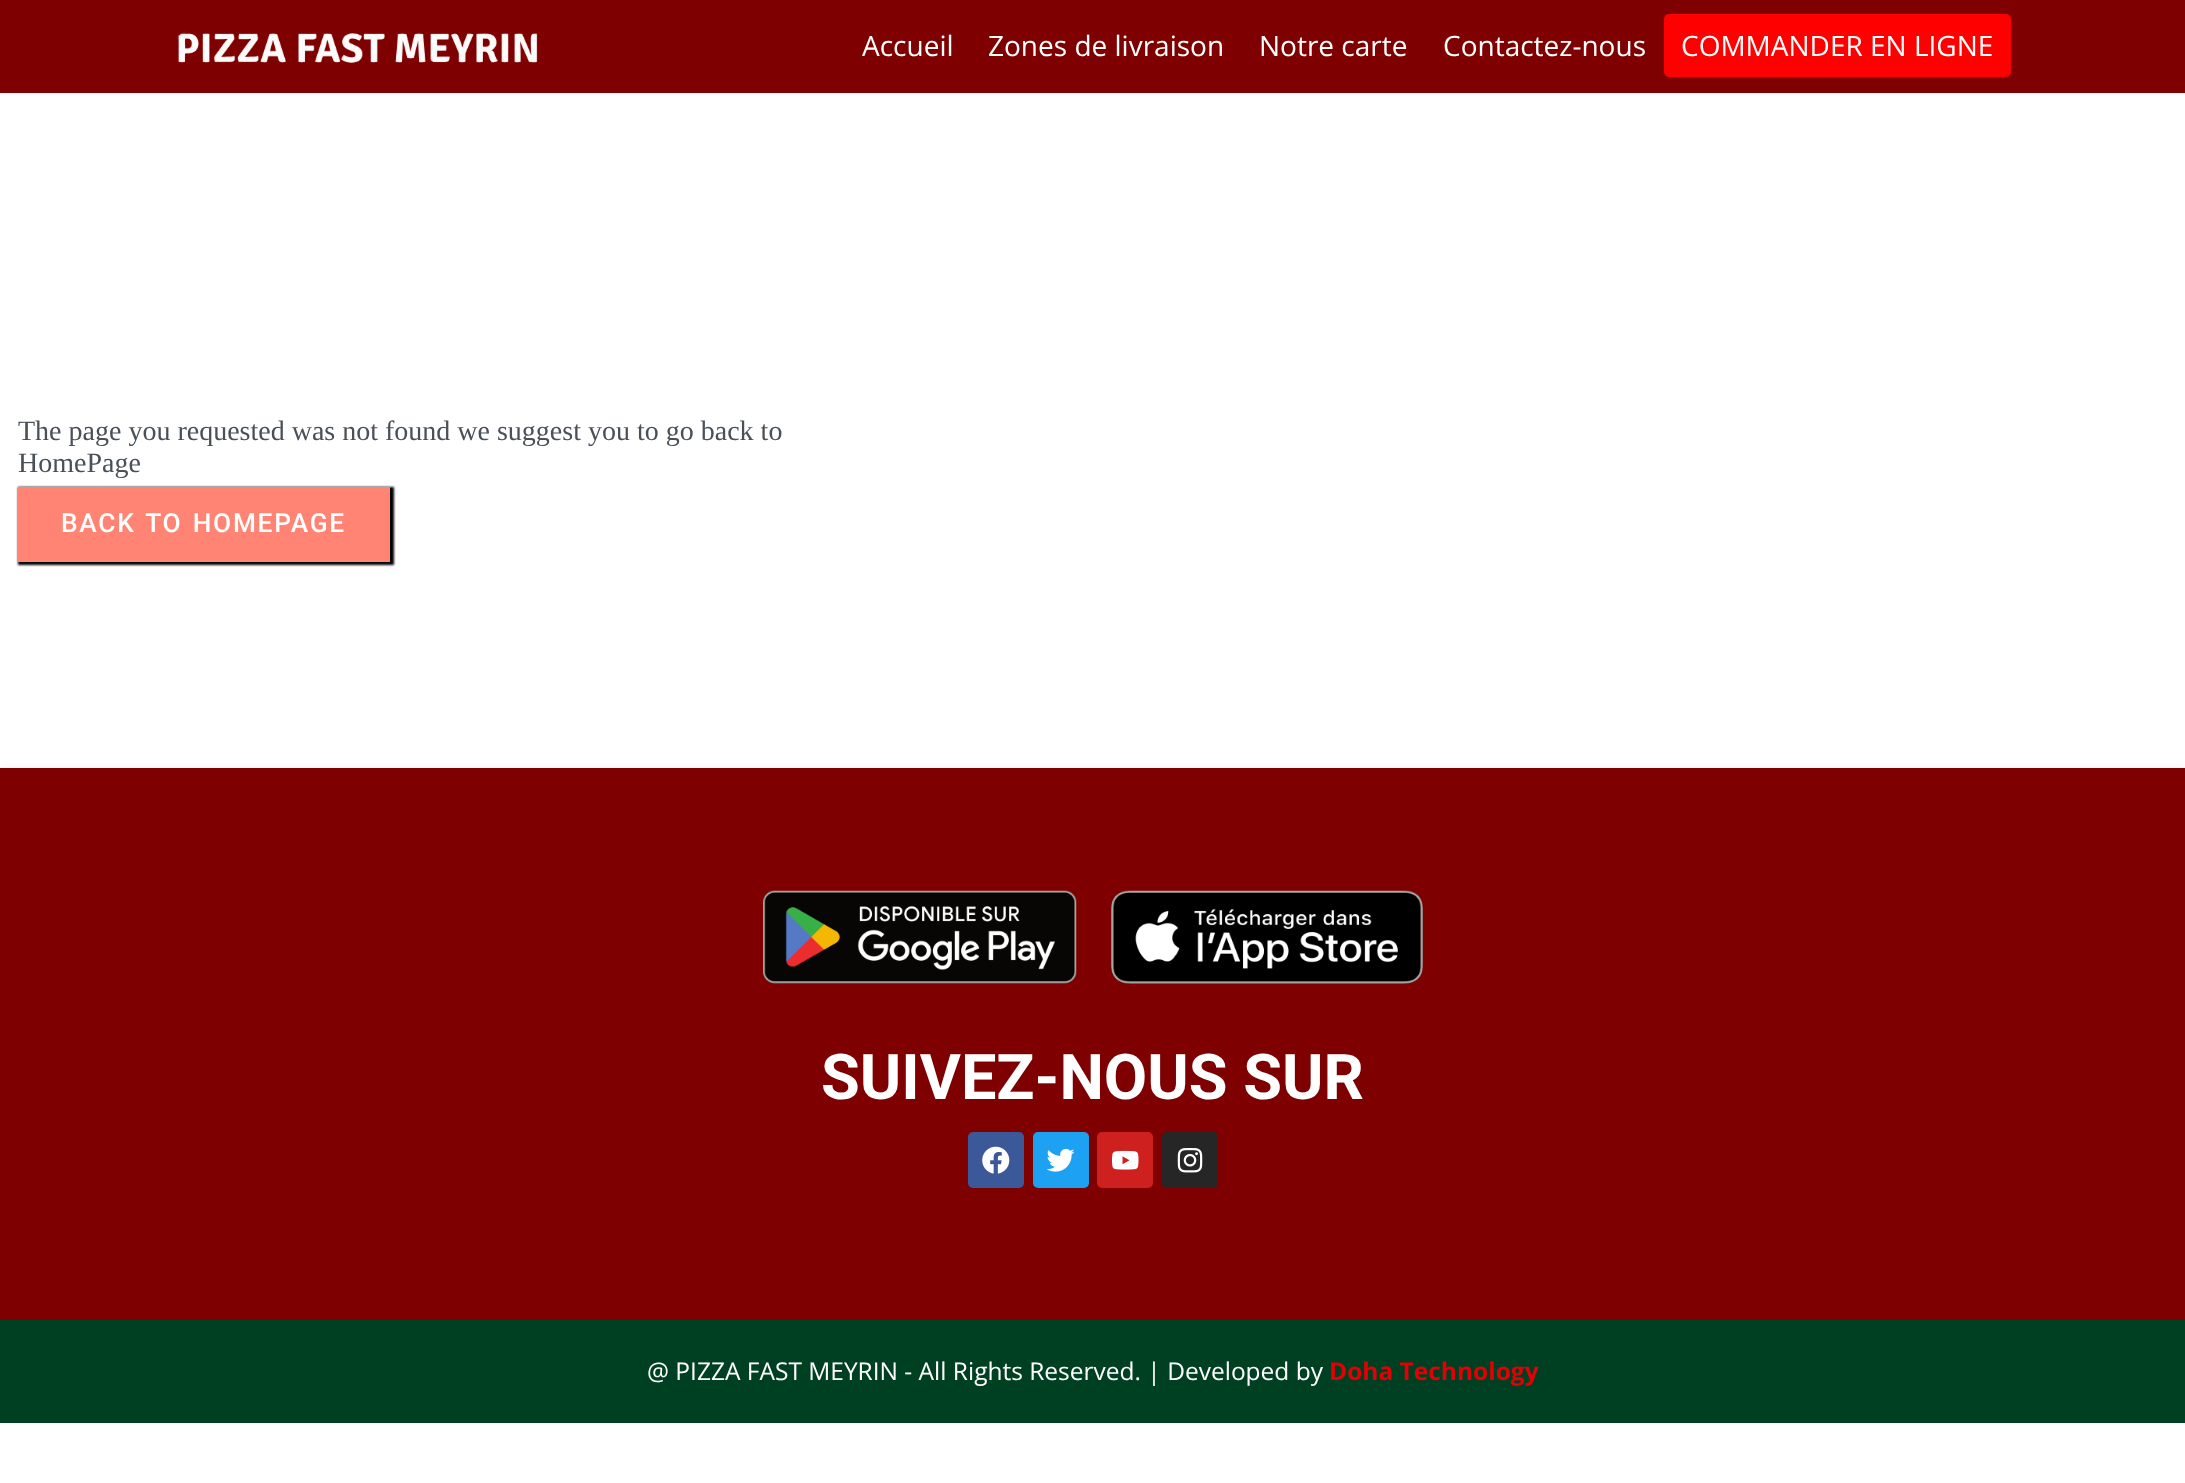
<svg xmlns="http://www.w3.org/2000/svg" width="2185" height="1483">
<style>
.a{font:28px Open Sans;fill:#fff}
.b{font:28px Liberation Serif;fill:#495057}
.c{font:500 26.25px Roboto;letter-spacing:1.75px;fill:#fff}
.d{font:bold 63px Roboto;fill:#fff}
.e{font:24.5px Open Sans;fill:#fff}
.f{font:bold 24.5px Open Sans;fill:#e10005}
</style>
<rect width="100%" height="100%" fill="#fff"/>
<path fill="#7e0000" d="M0 0h2185v93H0z"/>
<image href="1.png" x="176" y="31" width="362" height="32"/>
<rect fill="#f00" x="1664" y="14" width="347" height="63" rx="5"/>
<path fill="#000" filter="blur(1px)" d="M18 487h376v78H18z"/>
<path fill="#ff8474" d="M18 487h372v75H18z"/>
<path fill="#0000000d" filter="blur(4.5px)" d="M0 768h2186v552H0z"/>
<path fill="#7e0000" d="M0 768h2185v552H0z"/>
<image href="2.png" x="763" y="890" width="314" height="94"/>
<image href="3.png" x="1111" y="890" width="312" height="94"/>
<rect fill="#3b5998" x="968" y="1132" width="56" height="56" rx="5"/>
<image href="4.png" x="982" y="1146" width="28" height="28"/>
<rect fill="#1da1f2" x="1033" y="1132" width="56" height="56" rx="5"/>
<image href="5.png" x="1047" y="1148" width="28" height="24"/>
<rect fill="#cd201f" x="1097" y="1132" width="56" height="56" rx="5"/>
<image href="6.png" x="1112" y="1150" width="27" height="20"/>
<rect fill="#262626" x="1162" y="1132" width="56" height="56" rx="5"/>
<image href="7.png" x="1177" y="1148" width="26" height="25"/>
<path fill="#004022" d="M0 1320h2185v103H0z"/>
<text class="a" x="862" y="56">Accueil</text>
<text class="a" x="988" y="56">Zones de livraison</text>
<text class="a" x="1259" y="56">Notre carte</text>
<text class="a" x="1443" y="56">Contactez-nous</text>
<text class="a" x="1681" y="56">COMMANDER EN LIGNE</text>
<text class="b" x="18" y="440">The page you requested was not found we suggest you to go back to</text>
<text class="b" x="18" y="472">HomePage</text>
<text class="c" x="61" y="532" word-spacing="2">BACK TO HOMEPAGE</text>
<text class="d" x="821" y="1099">SUIVEZ-NOUS SUR</text>
<text class="e" x="647" y="1380">@ PIZZA FAST MEYRIN - All Rights Reserved. | Developed by</text>
<text class="f" x="1329" y="1380">Doha Technology</text>
</svg>
